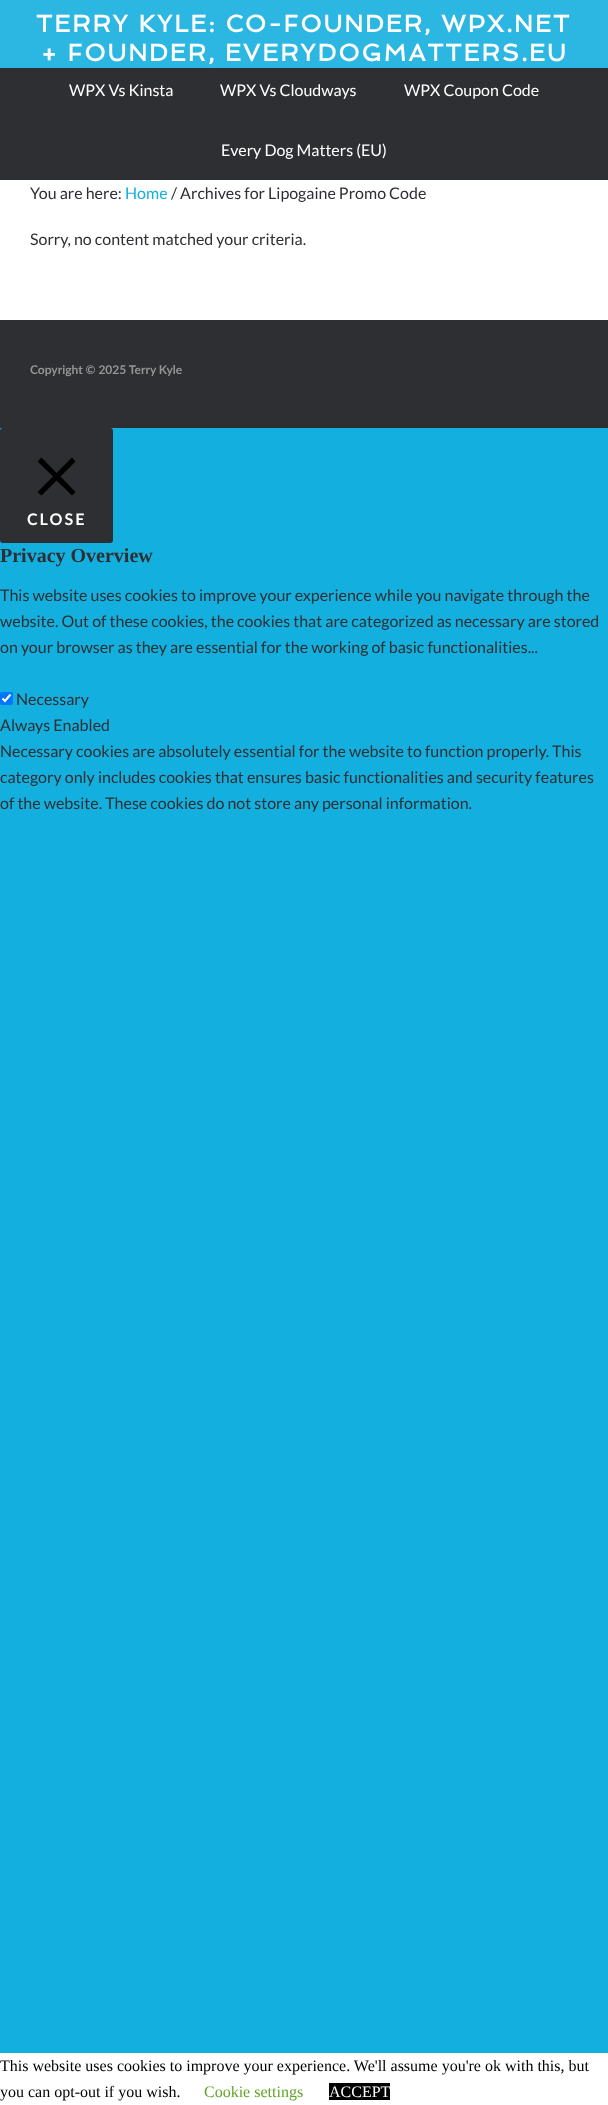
<svg xmlns="http://www.w3.org/2000/svg" width="608" height="2105">
<style>
.a{font:bold 24px Spinnaker;letter-spacing:2px;fill:#fff}
.b{font:16px Lato;fill:#fff}
.c{font:16px Lato;fill:#2e2f33}
.d{font:16px Lato;fill:#13afdf}
.e{font:bold 12px Lato;fill:#959595}
.f{font:bold 16px Lato;letter-spacing:2px;fill:#fff}
.g{font:bold 20px Liberation Serif;fill:#2e2f33}
.h{font:16px Liberation Serif;fill:#000}
.i{font:16px Liberation Serif;fill:#62a329}
.j{font:16px Liberation Serif;fill:#fff}
</style>
<rect width="100%" height="100%" fill="#13afdf"/>
<path fill="#2bb7e2" d="M0 0h608v68H0z"/>
<path fill="#2e2f33" d="M0 68h608v112H0z"/>
<path fill="#fff" d="M0 180h608v140H0z"/>
<path fill="#2e2f33" d="M0 320h608v108H0z"/>
<rect fill="#2e2f33" y="428" width="113" height="115" rx="3"/>
<path fill="#000" d="M75.5 461.5l-3.5-4l-15.5 15.5l-15-15.5l-4 4l15.5 15l-15.5 15.5l4 3.5l15-15l15.5 15l3.5-3.5l-15-15.5z"/>
<rect fill="#0075ff" y="692" width="13" height="13" rx="2"/>
<path fill="none" stroke="#fff" stroke-width="2.1" d="M2.5 698.5l2.5 2.5l5.5-6.5"/>
<path fill="#fff" d="M0 2053h608v52H0z"/>
<path fill="#000" d="M329 2083h61v17H329z"/>
<text class="a" x="36" y="32">TERRY KYLE: CO-FOUNDER, WPX.NET</text>
<text class="a" x="41" y="61">+ FOUNDER, EVERYDOGMATTERS.EU</text>
<text class="b" x="69" y="96">WPX Vs Kinsta</text>
<text class="b" x="220" y="96">WPX Vs Cloudways</text>
<text class="b" x="404" y="96">WPX Coupon Code</text>
<text class="b" x="221" y="156">Every Dog Matters (EU)</text>
<text class="c" x="30" y="199">You are here:</text>
<text class="d" x="125" y="199">Home</text>
<text class="c" x="171" y="199">/ Archives for Lipogaine Promo Code</text>
<text class="c" x="30" y="245">Sorry, no content matched your criteria.</text>
<text class="e" x="30" y="374">Copyright © 2025 Terry Kyle</text>
<text class="f" x="27" y="525">CLOSE</text>
<text class="g" x="0" y="562">Privacy Overview</text>
<text class="c" x="0" y="601">This website uses cookies to improve your experience while you navigate through the</text>
<text class="c" x="0" y="627">website. Out of these cookies, the cookies that are categorized as necessary are stored</text>
<text class="c" x="0" y="653">on your browser as they are essential for the working of basic functionalities...</text>
<text class="c" x="16" y="705">Necessary</text>
<text class="c" x="0" y="731">Always Enabled</text>
<text class="c" x="0" y="757">Necessary cookies are absolutely essential for the website to function properly. This</text>
<text class="c" x="0" y="783">category only includes cookies that ensures basic functionalities and security features</text>
<text class="c" x="0" y="809">of the website. These cookies do not store any personal information.</text>
<text class="h" x="0" y="2071">This website uses cookies to improve your experience. We'll assume you're ok with this, but</text>
<text class="h" x="0" y="2097">you can opt-out if you wish.</text>
<text class="i" x="204" y="2097">Cookie settings</text>
<text class="j" x="329" y="2097">ACCEPT</text>
</svg>
